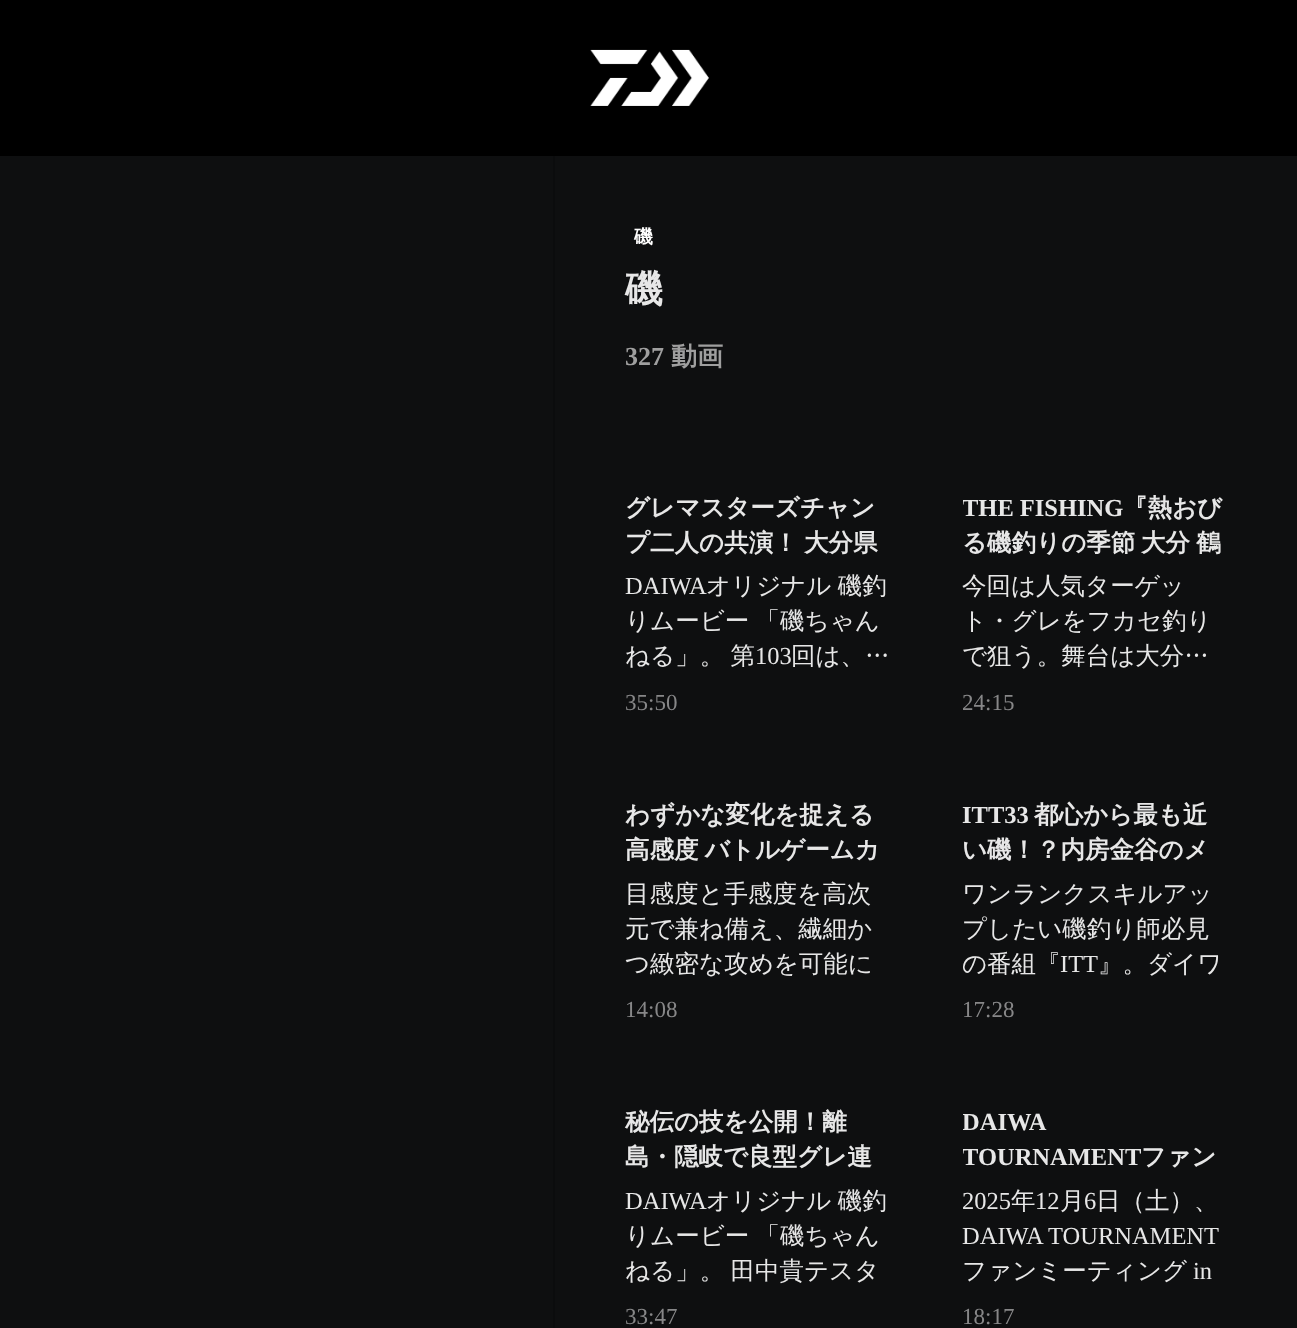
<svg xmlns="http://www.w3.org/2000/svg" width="1297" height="1328">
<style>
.a{font:bold 19px WenQuanYi Zen Hei;fill:#fff}
.b{font:bold 38px WenQuanYi Zen Hei;fill:#e7e7e7}
.c{font:bold 26px Liberation Serif;fill:#9f9f9f}
.d{font:bold 26px WenQuanYi Zen Hei;fill:#9f9f9f}
.e{font:bold 24.5px WenQuanYi Zen Hei;fill:#e7e7e7}
.f{font:24.5px Liberation Serif;fill:#e7e7e7}
.g{font:500 24.5px WenQuanYi Zen Hei;fill:#e7e7e7}
.h{font:23px Liberation Serif;fill:#878788}
.i{font:bold 24.5px Liberation Serif;fill:#e7e7e7}
</style>
<defs>
<clipPath id="clip1"><path d="M963 492h266v70H963z"/></clipPath>
<clipPath id="clip2"><path d="M963 877h266v105H963z"/></clipPath>
<clipPath id="clip3"><path d="M963 1106h266v70H963z"/></clipPath>
</defs>
<rect width="100%" height="100%" fill="#000"/>
<image href="1.png" x="590" y="49" width="119" height="57"/>
<path fill="#0e0f10" d="M0 156h1297v1172H0z"/>
<path fill="#0b0c0d" d="M553 156h2v1172H553z"/>
<text class="a" x="634" y="243">磯</text>
<text class="b" x="625" y="302">磯</text>
<text class="c" x="625" y="365">327</text>
<text class="d" x="671" y="365">動画</text>
<text class="e" x="625" y="516">グレマスターズチャン</text>
<text class="e" x="625" y="551" word-spacing="-1">プ二人の共演！ 大分県</text>
<text class="f" x="625" y="594">DAIWA</text>
<text class="g" x="706" y="594" word-spacing="-1">オリジナル 磯釣</text>
<text class="g" x="625" y="629" word-spacing="-1">りムービー 「磯ちゃん</text>
<text class="g" x="625" y="664" word-spacing="-1">ねる」。 第</text>
<text class="f" x="755" y="664">103</text>
<text class="g" x="791" y="664">回は、…</text>
<text class="h" x="625" y="710">35:50</text>
<g clip-path="url(#clip1)">
<text class="i" x="962" y="516">THE FISHING</text>
</g>
<text class="e" x="1123" y="516">『熱おび</text>
<text class="e" x="962" y="551">る磯釣りの季節</text>
<text class="e" x="1141" y="551" word-spacing="-1">大分 鶴</text>
<text class="g" x="962" y="594">今回は人気ターゲッ</text>
<text class="g" x="962" y="629">ト・グレをフカセ釣り</text>
<text class="g" x="962" y="664">で狙う。舞台は大分…</text>
<text class="h" x="962" y="710">24:15</text>
<text class="e" x="625" y="823">わずかな変化を捉える</text>
<text class="e" x="625" y="858" word-spacing="-1">高感度 バトルゲームカ</text>
<text class="g" x="625" y="902">目感度と手感度を高次</text>
<text class="g" x="625" y="937">元で兼ね備え、繊細か</text>
<text class="g" x="625" y="972">つ緻密な攻めを可能に</text>
<text class="h" x="625" y="1017">14:08</text>
<text class="i" x="962" y="823">ITT33</text>
<text class="e" x="1034" y="823">都心から最も近</text>
<text class="e" x="962" y="858">い磯！？内房金谷のメ</text>
<text class="g" x="962" y="902">ワンランクスキルアッ</text>
<text class="g" x="962" y="937">プしたい磯釣り師必見</text>
<g clip-path="url(#clip2)">
<text class="g" x="962" y="972">の番組『</text>
</g>
<text class="f" x="1060" y="972">ITT</text>
<text class="g" x="1098" y="972">』。ダイワ</text>
<text class="h" x="962" y="1017">17:28</text>
<text class="e" x="625" y="1130">秘伝の技を公開！離</text>
<text class="e" x="625" y="1165">島・隠岐で良型グレ連</text>
<text class="f" x="625" y="1209">DAIWA</text>
<text class="g" x="706" y="1209" word-spacing="-1">オリジナル 磯釣</text>
<text class="g" x="625" y="1244" word-spacing="-1">りムービー 「磯ちゃん</text>
<text class="g" x="625" y="1279" word-spacing="-1">ねる」。 田中貴テスタ</text>
<text class="h" x="625" y="1324">33:47</text>
<g clip-path="url(#clip3)">
<text class="i" x="962" y="1130">DAIWA</text>
<text class="i" x="962" y="1165">TOURNAMENT</text>
</g>
<text class="e" x="1141" y="1165">ファン</text>
<text class="f" x="962" y="1209">2025</text>
<text class="g" x="1011" y="1209">年</text>
<text class="f" x="1035" y="1209">12</text>
<text class="g" x="1060" y="1209">月</text>
<text class="f" x="1084" y="1209">6</text>
<text class="g" x="1096" y="1209">日（土）、</text>
<text class="f" x="962" y="1244">DAIWA TOURNAMENT</text>
<text class="g" x="962" y="1279">ファンミーティング</text>
<text class="f" x="1193" y="1279">in</text>
<text class="h" x="962" y="1324">18:17</text>
</svg>
